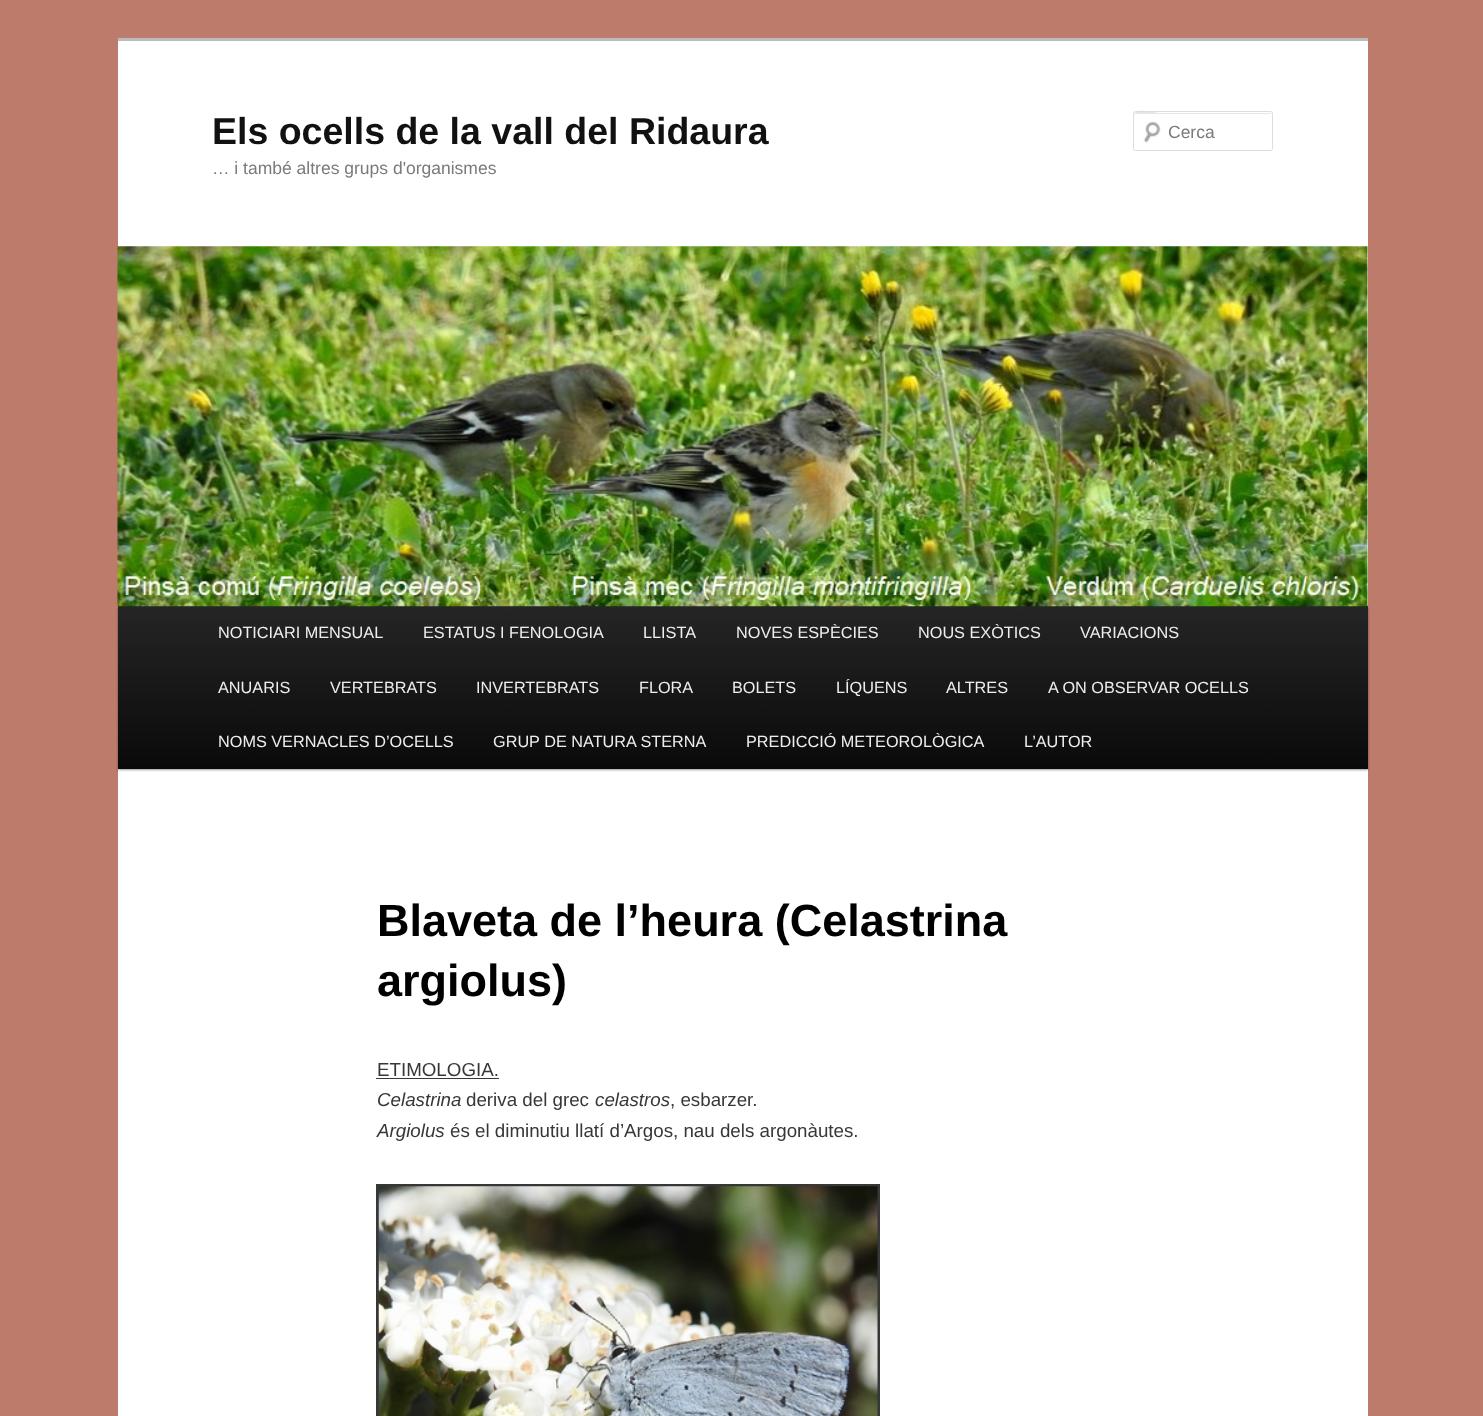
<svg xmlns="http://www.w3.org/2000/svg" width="1483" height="1416">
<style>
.a{font:bold 37.5px Liberation Sans;fill:#111}
.b{font:17.5px Liberation Sans;fill:#7a7a7a}
.c{font:16.25px Liberation Sans;fill:#eee}
.d{font:bold 45px Liberation Sans;fill:#000}
.e{font:18.75px Liberation Sans;fill:#373737}
.f{font:italic 18.75px Liberation Sans;fill:#373737}
</style>
<defs>
<linearGradient id="g1" gradientUnits="userSpaceOnUse" x1="743" y1="606" x2="743" y2="769"><stop offset="0" stop-color="#252525"/><stop offset="1" stop-color="#0a0a0a"/></linearGradient>
</defs>
<rect width="100%" height="100%" fill="#bc7b6b"/>
<path fill="#fff" d="M118 41h1250v1375H118z"/>
<path fill="#bbb" d="M118 38h1250v3H118z"/>
<image href="1.png" x="1143" y="121" width="18" height="22"/>
<path fill="#e6e6e6" d="M1135 114h135c1 0 1 0 1 1v-2h-113c-1 0-24-6-24 2c0-1 0-1 1-1z"/>
<rect fill="none" stroke="#ddd" x="1133.5" y="111.5" width="139" height="39" rx="2"/>
<path fill="#00000066" filter="blur(1px)" d="M118 608h1250v162H118z"/>
<path fill="url(#g1)" d="M118 606h1250v163H118z"/>
<image href="2.png" x="117" y="246" width="1251" height="361"/>
<path fill="#373737" d="M376 1078h123v1H376z"/>
<path fill="none" stroke="#373737" stroke-width="3" d="M377.5 1185.5h501v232H377.5z"/>
<image href="3.png" x="378" y="1186" width="500" height="230"/>
<text class="a" x="212" y="144">Els ocells de la vall del Ridaura</text>
<text class="b" x="212" y="174">… i també altres grups d'organismes</text>
<text class="b" x="1168" y="138">Cerca</text>
<text class="c" x="218" y="638">NOTICIARI MENSUAL</text>
<text class="c" x="423" y="638">ESTATUS I FENOLOGIA</text>
<text class="c" x="643" y="638">LLISTA</text>
<text class="c" x="736" y="638">NOVES ESPÈCIES</text>
<text class="c" x="918" y="638">NOUS EXÒTICS</text>
<text class="c" x="1080" y="638">VARIACIONS</text>
<text class="c" x="218" y="693">ANUARIS</text>
<text class="c" x="330" y="693">VERTEBRATS</text>
<text class="c" x="476" y="693">INVERTEBRATS</text>
<text class="c" x="639" y="693">FLORA</text>
<text class="c" x="732" y="693">BOLETS</text>
<text class="c" x="836" y="693">LÍQUENS</text>
<text class="c" x="946" y="693">ALTRES</text>
<text class="c" x="1048" y="693">A ON OBSERVAR OCELLS</text>
<text class="c" x="218" y="747">NOMS VERNACLES D’OCELLS</text>
<text class="c" x="493" y="747">GRUP DE NATURA STERNA</text>
<text class="c" x="746" y="747">PREDICCIÓ METEOROLÒGICA</text>
<text class="c" x="1024" y="747">L’AUTOR</text>
<text class="d" x="377" y="936">Blaveta de l’heura (Celastrina</text>
<text class="d" x="377" y="996">argiolus)</text>
<text class="e" x="377" y="1076">ETIMOLOGIA.</text>
<text class="f" x="377" y="1106">Celastrina</text>
<text class="e" x="466" y="1106">deriva del grec</text>
<text class="f" x="595" y="1106">celastros</text>
<text class="e" x="670" y="1106">, esbarzer.</text>
<text class="f" x="377" y="1137">Argiolus</text>
<text class="e" x="450" y="1137">és el diminutiu llatí d’Argos, nau dels argonàutes.</text>
</svg>
